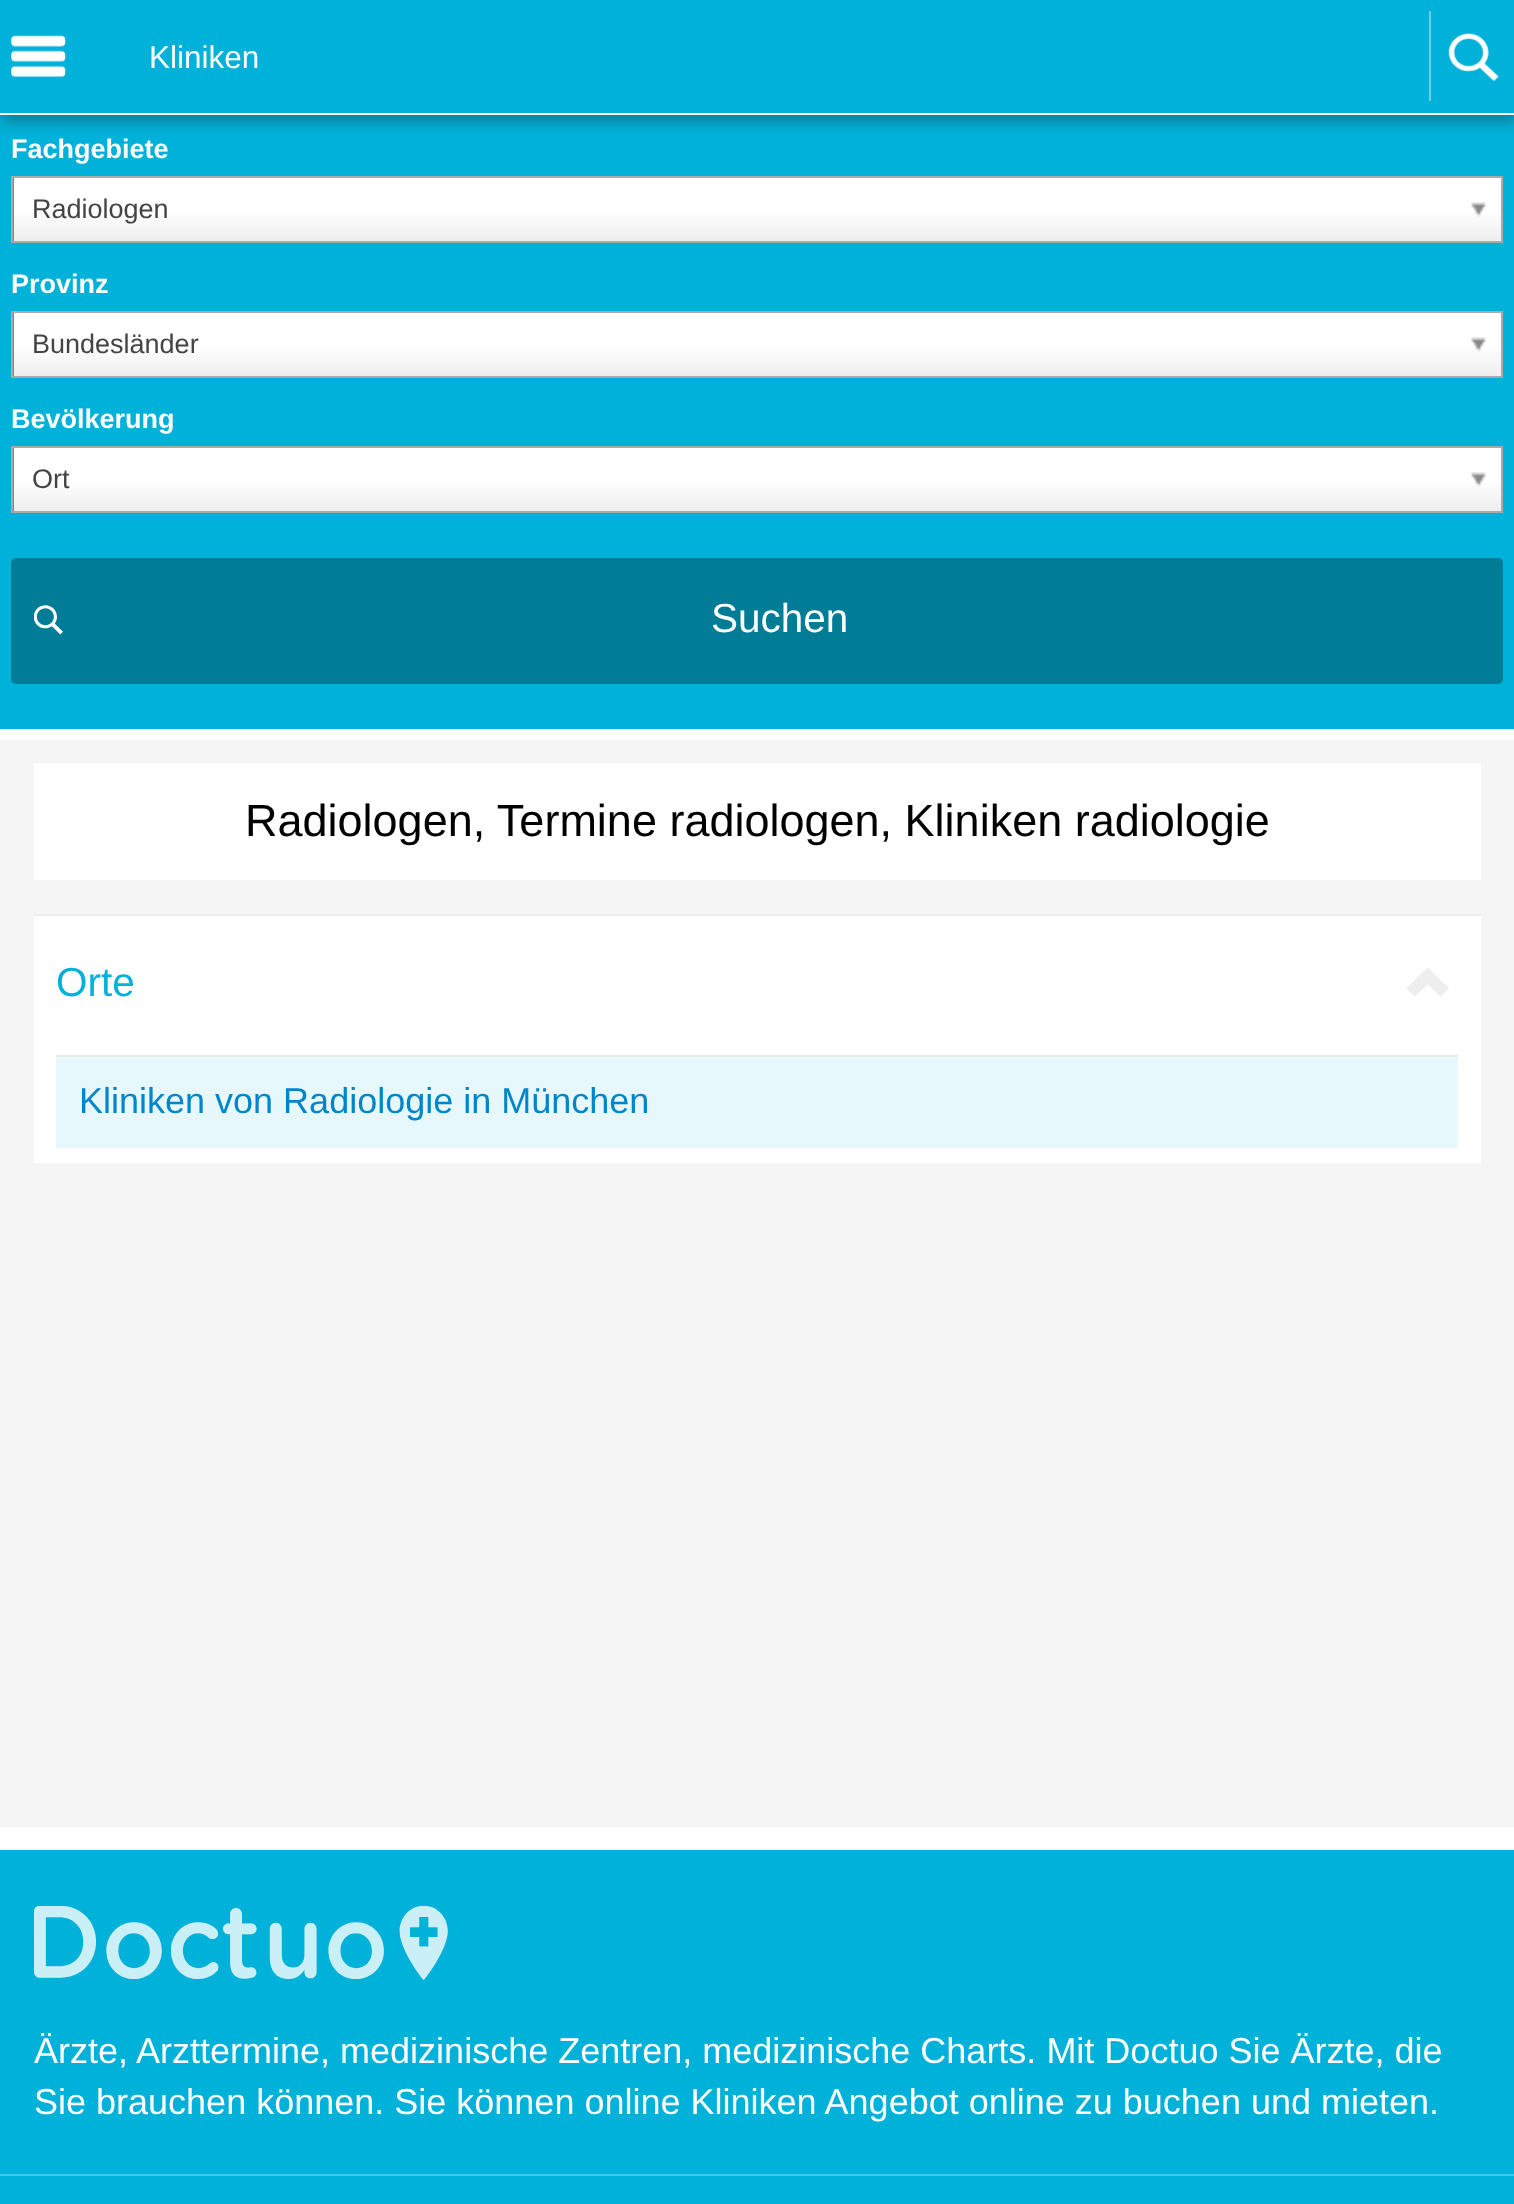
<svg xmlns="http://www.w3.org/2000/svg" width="1514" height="2204">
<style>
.a{font:31.5px Liberation Sans;fill:#fff}
.b{font:bold 27px Liberation Sans;fill:#fff}
.c{font:27px Liberation Sans;fill:#444}
.d{font:40.5px Liberation Sans;fill:#fff}
.e{font:45px Liberation Sans;fill:#000}
.f{font:40.5px Liberation Sans;fill:#00b1d9}
.g{font:36px Liberation Sans;fill:#0085cb}
.h{font:36px Liberation Sans;fill:#fff}
</style>
<defs>
<linearGradient id="g1" gradientUnits="userSpaceOnUse" x1="14" y1="241" x2="14" y2="178"><stop offset="0" stop-color="#eee"/><stop offset="0.5" stop-color="#fff"/></linearGradient>
<linearGradient id="g2" gradientUnits="userSpaceOnUse" x1="14" y1="376" x2="14" y2="313"><stop offset="0" stop-color="#eee"/><stop offset="0.5" stop-color="#fff"/></linearGradient>
<linearGradient id="g3" gradientUnits="userSpaceOnUse" x1="14" y1="511" x2="14" y2="448"><stop offset="0" stop-color="#eee"/><stop offset="0.5" stop-color="#fff"/></linearGradient>
</defs>
<rect width="100%" height="100%" fill="#fff"/>
<path fill="#00b1d9" d="M0 115h1514v614H0z"/>
<path fill="#2828285c" filter="blur(7px)" d="M2 7h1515v115H2z"/>
<path fill="#00b1d9" d="M0 0h1514v113H0z"/>
<path fill="#fff" d="M0 113h1514v2H0z"/>
<image href="1.png" x="11" y="35" width="55" height="42"/>
<path fill="#66d0e8" d="M1429 11h2v90H1429z"/>
<image href="2.png" x="1448" y="33" width="51" height="49"/>
<path fill="url(#g1)" d="M14 178h1487v63H14z"/>
<path fill="none" stroke="#aaa" stroke-width="2" d="M12 177h1490v65H12z"/>
<image href="3.png" x="1471" y="202" width="16" height="15"/>
<path fill="url(#g2)" d="M14 313h1487v63H14z"/>
<path fill="none" stroke="#aaa" stroke-width="2" d="M12 312h1490v65H12z"/>
<image href="3.png" x="1471" y="337" width="16" height="15"/>
<path fill="url(#g3)" d="M14 448h1487v63H14z"/>
<path fill="none" stroke="#aaa" stroke-width="2" d="M12 447h1490v65H12z"/>
<image href="3.png" x="1471" y="472" width="16" height="15"/>
<rect fill="#007c97" x="11" y="558" width="1492" height="126" rx="5"/>
<image href="4.png" x="34" y="605" width="29" height="30"/>
<path fill="#f5f5f5" d="M0 740h1514v1087H0z"/>
<path fill="#fff" d="M34 763h1447v117H34z"/>
<path fill="#fff" d="M34 916h1447v247H34z"/>
<path fill="#eee" d="M34 914h1447v2H34z"/>
<image href="5.png" x="1406" y="968" width="43" height="29"/>
<path fill="#e6f8fc" d="M56 1057h1402v91H56z"/>
<path fill="#e9e9e9" d="M56 1055h1402v2H56z"/>
<path fill="#00b1d9" d="M0 1850h1514v354H0z"/>
<image href="6.png" x="34" y="1906" width="414" height="74"/>
<image href="7.png" x="34" y="1906" width="414" height="74"/>
<path fill="#45c6e3" d="M0 2174h1514v2H0z"/>
<text class="a" x="149" y="68">Kliniken</text>
<text class="b" x="11" y="158">Fachgebiete</text>
<text class="c" x="32" y="218">Radiologen</text>
<text class="b" x="11" y="293">Provinz</text>
<text class="c" x="32" y="353">Bundesländer</text>
<text class="b" x="11" y="428">Bevölkerung</text>
<text class="c" x="32" y="488">Ort</text>
<text class="d" x="711" y="632">Suchen</text>
<text class="e" x="245" y="836">Radiologen, Termine radiologen, Kliniken radiologie</text>
<text class="f" x="56" y="996">Orte</text>
<text class="g" x="79" y="1113">Kliniken von Radiologie in München</text>
<text class="h" x="34" y="2063">Ärzte, Arzttermine, medizinische Zentren, medizinische Charts. Mit Doctuo Sie Ärzte, die</text>
<text class="h" x="34" y="2114">Sie brauchen können. Sie können online Kliniken Angebot online zu buchen und mieten.</text>
</svg>
